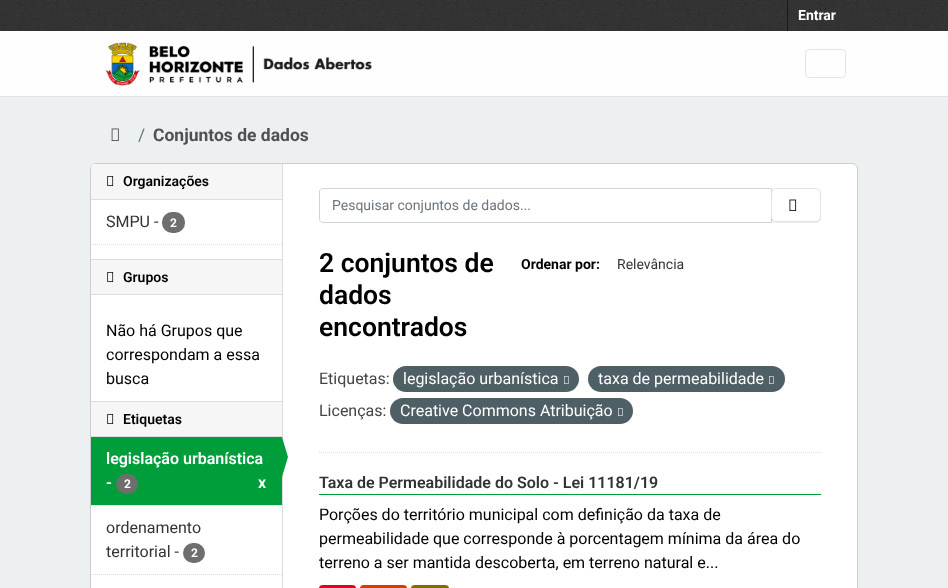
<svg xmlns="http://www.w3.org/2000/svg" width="948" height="588">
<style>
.a{font:bold 14px Roboto;fill:#fff}
.b{font:17.5px Roboto;fill:#6c757d}
.c{font:bold 17.5px Roboto;fill:#505050}
.d{font:600 14px Roboto;fill:#000}
.e{font:16px Roboto;fill:#333}
.f{font:bold 12px Roboto;fill:#fff}
.g{font:16px Roboto;fill:#000}
.h{font:600 16px Roboto;fill:#fff}
.i{font:14px Roboto;fill:#6c757d}
.j{font:600 26.5px Roboto;fill:#000}
.k{font:bold 14px Roboto;fill:#000}
.l{font:14px Roboto;fill:#333}
.m{font:16px Roboto;fill:#444}
.n{font:16px Roboto;fill:#fff}
.o{font:600 16px Roboto;fill:#333}
</style>
<rect width="100%" height="100%" fill="#ecf0f1"/>
<path fill="#333" d="M0 0h948v31H0z"/>
<image href="1.png" x="0" y="0" width="948" height="31"/>
<path fill="#00232e" d="M787 0h1v31H787z"/>
<path fill="#fefefe" d="M0 31h948v65H0z"/>
<path fill="#dee2e6" d="M0 96h948v1H0z"/>
<image href="2.png" x="105" y="42" width="267" height="44"/>
<rect fill="none" stroke="#e5e5e5" x="805.5" y="49.5" width="40" height="28" rx="3.5"/>
<image href="3.png" x="111" y="128" width="8" height="13"/>
<rect fill="#fff" stroke="#ccc" x="90.5" y="163.5" width="767" height="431" rx="5.5"/>
<path fill="#f6f6f6" d="M94 164h188v36h-191v-33c0-1.5 1.5-3 3-3z"/>
<path fill="#ddd" d="M91 199h191v1H91z"/>
<image href="4.png" x="107" y="176" width="7" height="10"/>
<rect fill="#6e6e6e" x="162" y="212" width="23" height="21" rx="10"/>
<path fill="none" stroke="#ddd" stroke-dasharray="1 1" d="M91 244.5h191"/>
<path fill="#f6f6f6" d="M91 260h191v34H91z"/>
<path fill="#ddd" d="M91 259h191v1H91z"/>
<path fill="#ddd" d="M91 294h191v1H91z"/>
<image href="4.png" x="107" y="272" width="7" height="10"/>
<path fill="#f6f6f6" d="M91 402h191v34H91z"/>
<path fill="#ddd" d="M91 401h191v1H91z"/>
<path fill="#ddd" d="M91 436h191v1H91z"/>
<image href="4.png" x="107" y="414" width="7" height="10"/>
<path fill="#f6f6f6" d="M92 505h189v1H92z"/>
<path fill="none" stroke="#ddd" stroke-dasharray="1 1" d="M91 505.5h191"/>
<path fill="#009e3b" d="M91 437h191v68H91z"/>
<path fill="#ddd" d="M282 164h1v424H282z"/>
<path fill="#009e3b" d="M282 477v-40l6 20z"/>
<rect fill="#6e6e6e" x="116" y="474" width="22" height="20" rx="10"/>
<path fill="none" stroke="#ddd" stroke-dasharray="1 1" d="M91 574.5h191"/>
<rect fill="#6e6e6e" x="183" y="543" width="22" height="20" rx="10"/>
<path fill="none" stroke="#ddd" stroke-dasharray="1 1" d="M319 452.5h502"/>
<path fill="none" stroke="#ced4da" d="M323 188.5h448.5v34h-448.5c-2 0-3.5-1.5-3.5-3.5v-27c0-2 1.5-3.5 3.5-3.5z"/>
<rect fill="#00000012" filter="blur(0.5px)" x="771" y="189" width="50" height="34" rx="5"/>
<rect fill="#fff" stroke="#dee2e6" x="771.5" y="188.5" width="49" height="33" rx="4.5"/>
<image href="5.png" x="789" y="199" width="8" height="12"/>
<rect fill="#4e5f65" x="393" y="366" width="186" height="26" rx="13"/>
<image href="6.png" x="564" y="376" width="5" height="8"/>
<rect fill="#4e5f65" x="588" y="366" width="197" height="26" rx="13"/>
<image href="6.png" x="769" y="376" width="5" height="8"/>
<rect fill="#4e5f65" x="390" y="398" width="243" height="26" rx="13"/>
<image href="6.png" x="618" y="408" width="5" height="8"/>
<path fill="#009e3b" d="M319 494h502v1H319z"/>
<rect fill="#e0051e" x="319" y="585" width="37" height="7" rx="4"/>
<rect fill="#d63b00" x="360" y="585" width="47" height="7" rx="4"/>
<rect fill="#856a00" x="411" y="585" width="38" height="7" rx="4"/>
<text class="a" x="798" y="20">Entrar</text>
<text class="b" x="138" y="141">/</text>
<text class="c" x="153" y="141">Conjuntos de dados</text>
<text class="d" x="123" y="186">Organizações</text>
<text class="e" x="106" y="227">SMPU -</text>
<text class="f" x="170" y="227">2</text>
<text class="d" x="123" y="282">Grupos</text>
<text class="g" x="106" y="336">Não há Grupos que</text>
<text class="g" x="106" y="360">correspondam a essa</text>
<text class="g" x="106" y="384">busca</text>
<text class="d" x="123" y="424">Etiquetas</text>
<text class="h" x="106" y="464">legislação urbanística</text>
<text class="h" x="106" y="488">-</text>
<text class="f" x="124" y="488">2</text>
<text class="h" x="258" y="488">x</text>
<text class="e" x="106" y="533">ordenamento</text>
<text class="e" x="106" y="557">territorial -</text>
<text class="f" x="191" y="557">2</text>
<text class="i" x="332" y="210">Pesquisar conjuntos de dados...</text>
<text class="j" x="319" y="272">2 conjuntos de</text>
<text class="j" x="319" y="304">dados</text>
<text class="j" x="319" y="336">encontrados</text>
<text class="k" x="521" y="269">Ordenar por:</text>
<text class="l" x="617" y="269">Relevância</text>
<text class="m" x="319" y="384">Etiquetas:</text>
<text class="n" x="403" y="384">legislação urbanística</text>
<text class="n" x="598" y="384">taxa de permeabilidade</text>
<text class="m" x="319" y="416">Licenças:</text>
<text class="n" x="400" y="416">Creative Commons Atribuição</text>
<text class="o" x="319" y="488">Taxa de Permeabilidade do Solo - Lei 11181/19</text>
<text class="g" x="319" y="520">Porções do território municipal com definição da taxa de</text>
<text class="g" x="319" y="544">permeabilidade que corresponde à porcentagem mínima da área do</text>
<text class="g" x="319" y="568">terreno a ser mantida descoberta, em terreno natural e...</text>
</svg>
